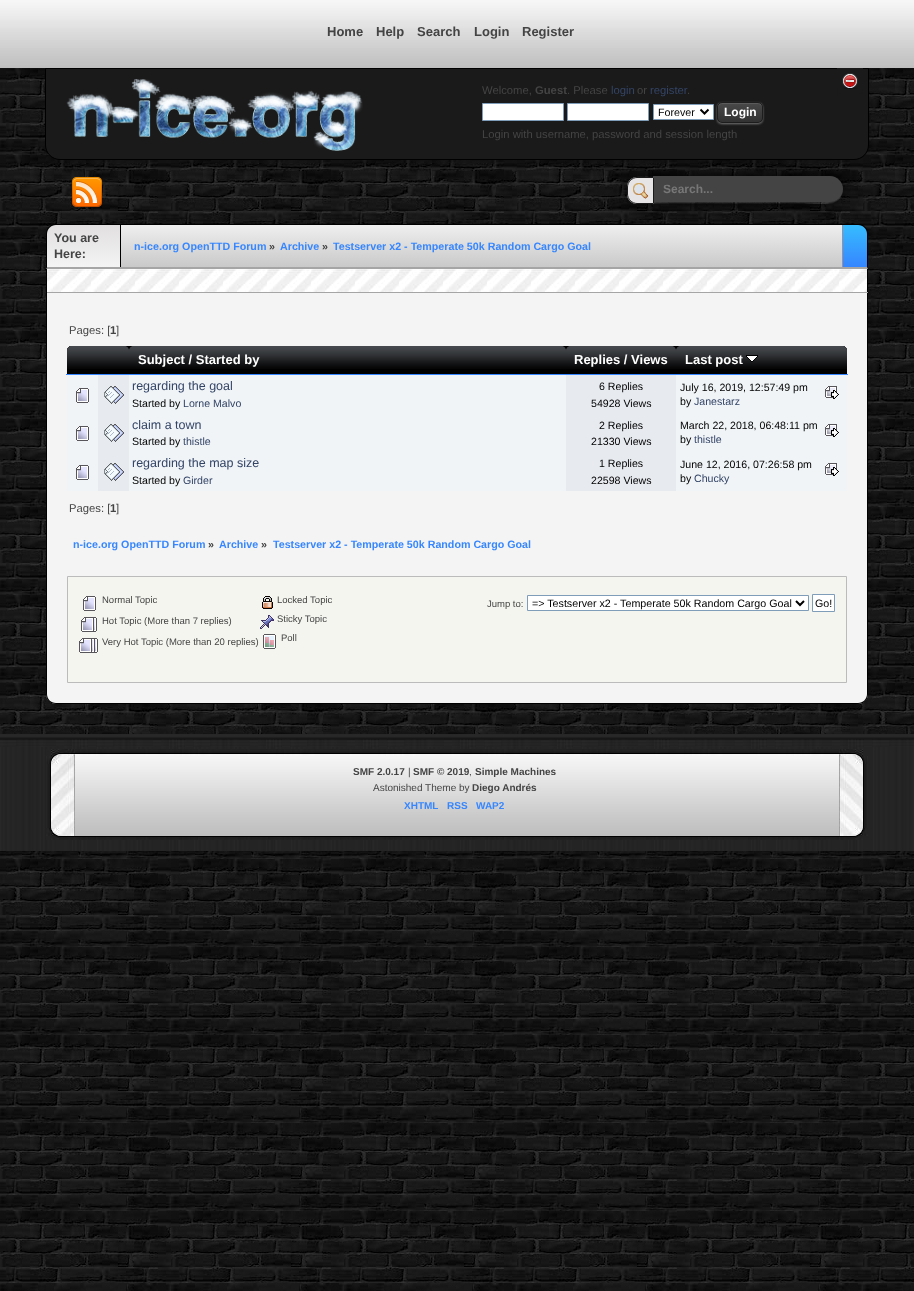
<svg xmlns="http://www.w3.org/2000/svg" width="914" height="1291">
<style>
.a{font:bold 13px Liberation Sans;fill:#444}
.b{font:11.25px Liberation Sans;fill:#444}
.c{font:bold 11.25px Liberation Sans;fill:#444}
.d{font:11.25px Liberation Sans;fill:#346}
.e{font:10.7px Liberation Sans;fill:#000}
.f{font:bold 12px Liberation Sans;fill:#fff}
.g{font:bold 12px Liberation Sans;fill:#777}
.h{font:bold 12.5px Liberation Sans;fill:#444}
.i{font:bold 10.7px Liberation Sans;fill:#3686ff}
.j{font:bold 10.7px Liberation Sans;fill:#444}
.k{font:bold 13px Liberation Sans;fill:#fff}
.l{font:12.5px Liberation Sans;fill:#346}
.m{font:10.6px Liberation Sans;fill:#000}
.n{font:10.6px Liberation Sans;fill:#346}
.o{font:9.5px Liberation Sans;fill:#444}
.p{font:bold 10px Liberation Sans;fill:#444}
.q{font:10px Liberation Sans;fill:#444}
.r{font:bold 10px Liberation Sans;fill:#3686ff}
</style>
<defs>
<clipPath id="clip1"><rect x="717" y="102" width="46" height="21" rx="5"/></clipPath>
<linearGradient id="g1" gradientUnits="userSpaceOnUse" x1="740" y1="103" x2="740" y2="122"><stop offset="0" stop-color="#494949"/><stop offset="1" stop-color="#323232"/></linearGradient>
<linearGradient id="g2" gradientUnits="userSpaceOnUse" x1="482" y1="225" x2="482" y2="267"><stop offset="0" stop-color="#efefef"/><stop offset="1" stop-color="#c9c9c9"/></linearGradient>
<linearGradient id="g3" gradientUnits="userSpaceOnUse" x1="855" y1="225" x2="855" y2="267"><stop offset="0" stop-color="#36bcff"/><stop offset="1" stop-color="#3686ff"/></linearGradient>
<clipPath id="clip2"><path d="M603 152h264v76h-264zm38 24h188c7.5 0 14 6.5 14 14c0 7.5-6.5 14-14 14h-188c-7.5 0-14-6.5-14-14c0-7.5 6.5-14 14-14z" clip-rule="evenodd"/></clipPath>
<linearGradient id="g4" gradientUnits="userSpaceOnUse" x1="84" y1="225" x2="84" y2="267"><stop offset="0" stop-color="#e1dfe0"/><stop offset="1" stop-color="#f4f4f4"/></linearGradient>
</defs>
<rect width="100%" height="100%" fill="#fff"/>
<image href="1.png" x="0" y="68" width="914" height="1223"/>
<image href="2.png" x="0" y="0" width="914" height="68"/>
<path fill="#1a1a1a" stroke="#000" d="M45.5 68.5h823v76.5c0 8-6.5 14.5-14.5 14.5h-794c-8 0-14.5-6.5-14.5-14.5z"/>
<path fill="#1a1a1a" d="M837 68h26v21c0 3-2 5-5 5h-16c-3 0-5-2-5-5z"/>
<image href="3.png" x="842" y="73" width="16" height="16"/>
<image href="4.png" x="66" y="79" width="297" height="72"/>
<path fill="#fff" stroke="#7f9db9" d="M482.5 103.5h81v17H482.5z"/>
<path fill="#fff" stroke="#7f9db9" d="M567.5 103.5h81v17H567.5z"/>
<path fill="#fff" stroke="#7f9db9" d="M653.5 104.5h60v15H653.5z"/>
<path fill="none" stroke="#000" stroke-width="2" d="M700.5 109.5l4 4l4-4"/>
<rect fill="#767676" filter="blur(1px)" x="717" y="103" width="46" height="21" rx="5"/>
<g clip-path="url(#clip1)">
<path fill="url(#g1)" d="M717 103h46v19H717z"/>
</g>
<path fill="#5b5b5b" d="M722 104h36c2 0 4 2 4 4c0-6-5-5-10-5h-24c-5 0-10-1-10 5c0-2 2-4 4-4z"/>
<rect fill="none" stroke="#1d1d1d" x="717.5" y="102.5" width="45" height="20" rx="4.5"/>
<image href="5.png" x="72" y="177" width="30" height="30"/>
<path fill="#000" d="M56 224c-3 0-6 1-7 3l1 1c1-2 4-3 6-3h802c2 0 5 1 6 3l1-1c-1-2-4-3-7-3z"/>
<path fill="#000" d="M868 269v-35c0-3-1-6-3-7l-1 1c2 1 3 4 3 6v33z"/>
<path fill="url(#g2)" d="M121 225h721v42H121z"/>
<path fill="#9b8e9f" d="M842 225h1v42H842z"/>
<path fill="url(#g3)" d="M843 225h15c5 0 9 4 9 9v33h-24z"/>
<g clip-path="url(#clip2)">
<rect fill="#000" filter="blur(7.5px)" x="627" y="176" width="216" height="28" rx="14"/>
</g>
<path fill="#ffffff1a" d="M653 202v1h147c9 0 44 7 43-14c0 7-6 13-13 13z"/>
<path fill="#444" d="M653 176h177c7 0 13 6 13 13c0 7-6 13-13 13h-177z"/>
<path fill="#e6e4e5" d="M637 177h17v27h-17c-5.5 0-10-4.5-10-10v-7c0-5.5 4.5-10 10-10z"/>
<image href="6.png" x="633" y="183" width="16" height="16"/>
<path fill="none" stroke="#1a1a1a" d="M637 177.5h16.5v26h-16.5c-5 0-9.5-4.5-9.5-9.5v-7c0-5 4.5-9.5 9.5-9.5z"/>
<path fill="#a5a5a5" d="M868 269l-1-2h-820l-1 2z"/>
<path fill="#000" d="M46 269l1-2v-33c0-2 1-5 3-6l-1-1c-2 1-3 4-3 7z"/>
<path fill="url(#g4)" d="M56 225h65v42h-74v-33c0-5 4-9 9-9z"/>
<path fill="#000" d="M120 225h1v42H120z"/>
<image href="7.png" x="47" y="269" width="820" height="23"/>
<path fill="#000" d="M867 269h1v24H867z"/>
<path fill="#a5a5a5" d="M46 292h822v1H46z"/>
<path fill="#000" d="M46 269h1v24H46z"/>
<path fill="#f4f4f4" d="M46 293h822v401c0 5.5-4.5 10-10 10h-802c-5.5 0-10-4.5-10-10z"/>
<path fill="#000" fill-rule="evenodd" d="M46 293h822v401c0 6-4 10-10 10h-802c-6 0-10-4-10-10zm1 0h820v401c0 5-4 9-9 9h-802c-5 0-9-4-9-9z"/>
<path fill="#000" d="M72 346h770c3 0 5 2 5 5v24h-780v-24c0-3 2-5 5-5z"/>
<path fill="#000" d="M72 346h52c3 0 5 2 5 5v24h-62v-24c0-3 2-5 5-5z"/>
<path fill="#000" d="M681 346h161c3 0 5 2 5 5v24h-171v-24c0-3 2-5 5-5z"/>
<path fill="#3686ff" d="M66 374h782v1H66z"/>
<image href="8.png" x="67" y="346" width="62" height="23"/>
<image href="9.png" x="129" y="346" width="437" height="23"/>
<image href="10.png" x="566" y="346" width="110" height="23"/>
<image href="11.png" x="676" y="346" width="171" height="23"/>
<image href="12.png" x="746" y="355" width="12" height="7"/>
<path fill="#f0f4f7" d="M67 375h31v116H67z"/>
<image href="13.png" x="76" y="388" width="13" height="15"/>
<path fill="#e7eaef" d="M98 375h31v116H98z"/>
<image href="14.png" x="104" y="386" width="20" height="18"/>
<path fill="#f0f4f7" d="M129 375h437v116H129z"/>
<path fill="#e7eaef" d="M566 375h110v116H566z"/>
<path fill="#f0f4f7" d="M676 375h171v116H676z"/>
<image href="15.png" x="825" y="386" width="14" height="13"/>
<image href="13.png" x="76" y="426" width="13" height="15"/>
<image href="14.png" x="104" y="424" width="20" height="18"/>
<image href="15.png" x="825" y="424" width="14" height="13"/>
<image href="13.png" x="76" y="465" width="13" height="15"/>
<image href="14.png" x="104" y="463" width="20" height="18"/>
<image href="15.png" x="825" y="463" width="14" height="13"/>
<path fill="#f5f5f0" stroke="#bbb" d="M67.5 576.5h779v106H67.5z"/>
<image href="16.png" x="83" y="596" width="13" height="15"/>
<image href="17.png" x="81" y="617" width="16" height="15"/>
<image href="18.png" x="79" y="638" width="19" height="15"/>
<image href="19.png" x="262" y="596" width="11" height="13"/>
<image href="20.png" x="260" y="615" width="14" height="14"/>
<image href="21.png" x="263" y="634" width="13" height="15"/>
<path fill="#fff" stroke="#7f9db9" d="M527.5 595.5h281v15H527.5z"/>
<path fill="none" stroke="#000" stroke-width="2" d="M796 601l4 4l4-4"/>
<path fill="#fff" stroke="#7f9db9" d="M812.5 594.5h22v17H812.5z"/>
<image href="22.png" x="0" y="734" width="914" height="117"/>
<image href="23.png" x="75" y="749" width="764" height="91"/>
<image href="24.png" x="46" y="749" width="29" height="91"/>
<image href="25.png" x="839" y="749" width="29" height="91"/>
<text class="a" x="327" y="36">Home</text>
<text class="a" x="376" y="36">Help</text>
<text class="a" x="417" y="36">Search</text>
<text class="a" x="474" y="36">Login</text>
<text class="a" x="522" y="36">Register</text>
<text class="b" x="482" y="94">Welcome,</text>
<text class="c" x="535" y="94">Guest</text>
<text class="b" x="567" y="94">. Please</text>
<text class="d" x="611" y="94">login</text>
<text class="b" x="637" y="94">or</text>
<text class="d" x="650" y="94">register</text>
<text class="b" x="687" y="94">.</text>
<text class="e" x="658" y="116">Forever</text>
<text class="f" x="724" y="116">Login</text>
<text class="b" x="482" y="138">Login with username, password and session length</text>
<text class="g" x="663" y="193">Search...</text>
<text class="h" x="54" y="242">You are</text>
<text class="h" x="54" y="258">Here:</text>
<text class="i" x="134" y="250">n-ice.org OpenTTD Forum</text>
<text class="j" x="269" y="250">»</text>
<text class="i" x="280" y="250">Archive</text>
<text class="j" x="322" y="250">»</text>
<text class="i" x="333" y="250">Testserver x2 - Temperate 50k Random Cargo Goal</text>
<text class="b" x="69" y="334">Pages: [</text>
<text class="c" x="110" y="334">1</text>
<text class="b" x="116" y="334">]</text>
<text class="k" x="138" y="364">Subject / Started by</text>
<text class="k" x="574" y="364">Replies / Views</text>
<text class="k" x="685" y="364">Last post</text>
<text class="l" x="132" y="390">regarding the goal</text>
<text class="m" x="132" y="407">Started by</text>
<text class="n" x="183" y="407">Lorne Malvo</text>
<text class="m" x="599" y="390">6 Replies</text>
<text class="m" x="591" y="407">54928 Views</text>
<text class="m" x="680" y="391">July 16, 2019, 12:57:49 pm</text>
<text class="m" x="680" y="405">by</text>
<text class="n" x="694" y="405">Janestarz</text>
<text class="l" x="132" y="429">claim a town</text>
<text class="m" x="132" y="445">Started by</text>
<text class="n" x="183" y="445">thistle</text>
<text class="m" x="599" y="429">2 Replies</text>
<text class="m" x="591" y="445">21330 Views</text>
<text class="m" x="680" y="429">March 22, 2018, 06:48:11 pm</text>
<text class="m" x="680" y="443">by</text>
<text class="n" x="694" y="443">thistle</text>
<text class="l" x="132" y="467">regarding the map size</text>
<text class="m" x="132" y="484">Started by</text>
<text class="n" x="183" y="484">Girder</text>
<text class="m" x="599" y="467">1 Replies</text>
<text class="m" x="591" y="484">22598 Views</text>
<text class="m" x="680" y="468">June 12, 2016, 07:26:58 pm</text>
<text class="m" x="680" y="482">by</text>
<text class="n" x="694" y="482">Chucky</text>
<text class="b" x="69" y="512">Pages: [</text>
<text class="c" x="110" y="512">1</text>
<text class="b" x="116" y="512">]</text>
<text class="i" x="73" y="548">n-ice.org OpenTTD Forum</text>
<text class="j" x="208" y="548">»</text>
<text class="i" x="219" y="548">Archive</text>
<text class="j" x="261" y="548">»</text>
<text class="i" x="273" y="548">Testserver x2 - Temperate 50k Random Cargo Goal</text>
<text class="o" x="102" y="603">Normal Topic</text>
<text class="o" x="102" y="624">Hot Topic (More than 7 replies)</text>
<text class="o" x="102" y="645">Very Hot Topic (More than 20 replies)</text>
<text class="o" x="277" y="603">Locked Topic</text>
<text class="o" x="277" y="622">Sticky Topic</text>
<text class="o" x="281" y="641">Poll</text>
<text class="o" x="487" y="607">Jump to:</text>
<text class="e" x="532" y="607">=&gt; Testserver x2 - Temperate 50k Random Cargo Goal</text>
<text class="e" x="815" y="607">Go!</text>
<text class="p" x="353" y="775">SMF 2.0.17</text>
<text class="q" x="408" y="775">|</text>
<text class="p" x="413" y="775">SMF © 2019</text>
<text class="q" x="469" y="775">,</text>
<text class="p" x="475" y="775">Simple Machines</text>
<text class="q" x="373" y="791">Astonished Theme by</text>
<text class="p" x="472" y="791">Diego Andrés</text>
<text class="r" x="404" y="809">XHTML</text>
<text class="r" x="447" y="809">RSS</text>
<text class="r" x="476" y="809">WAP2</text>
</svg>
